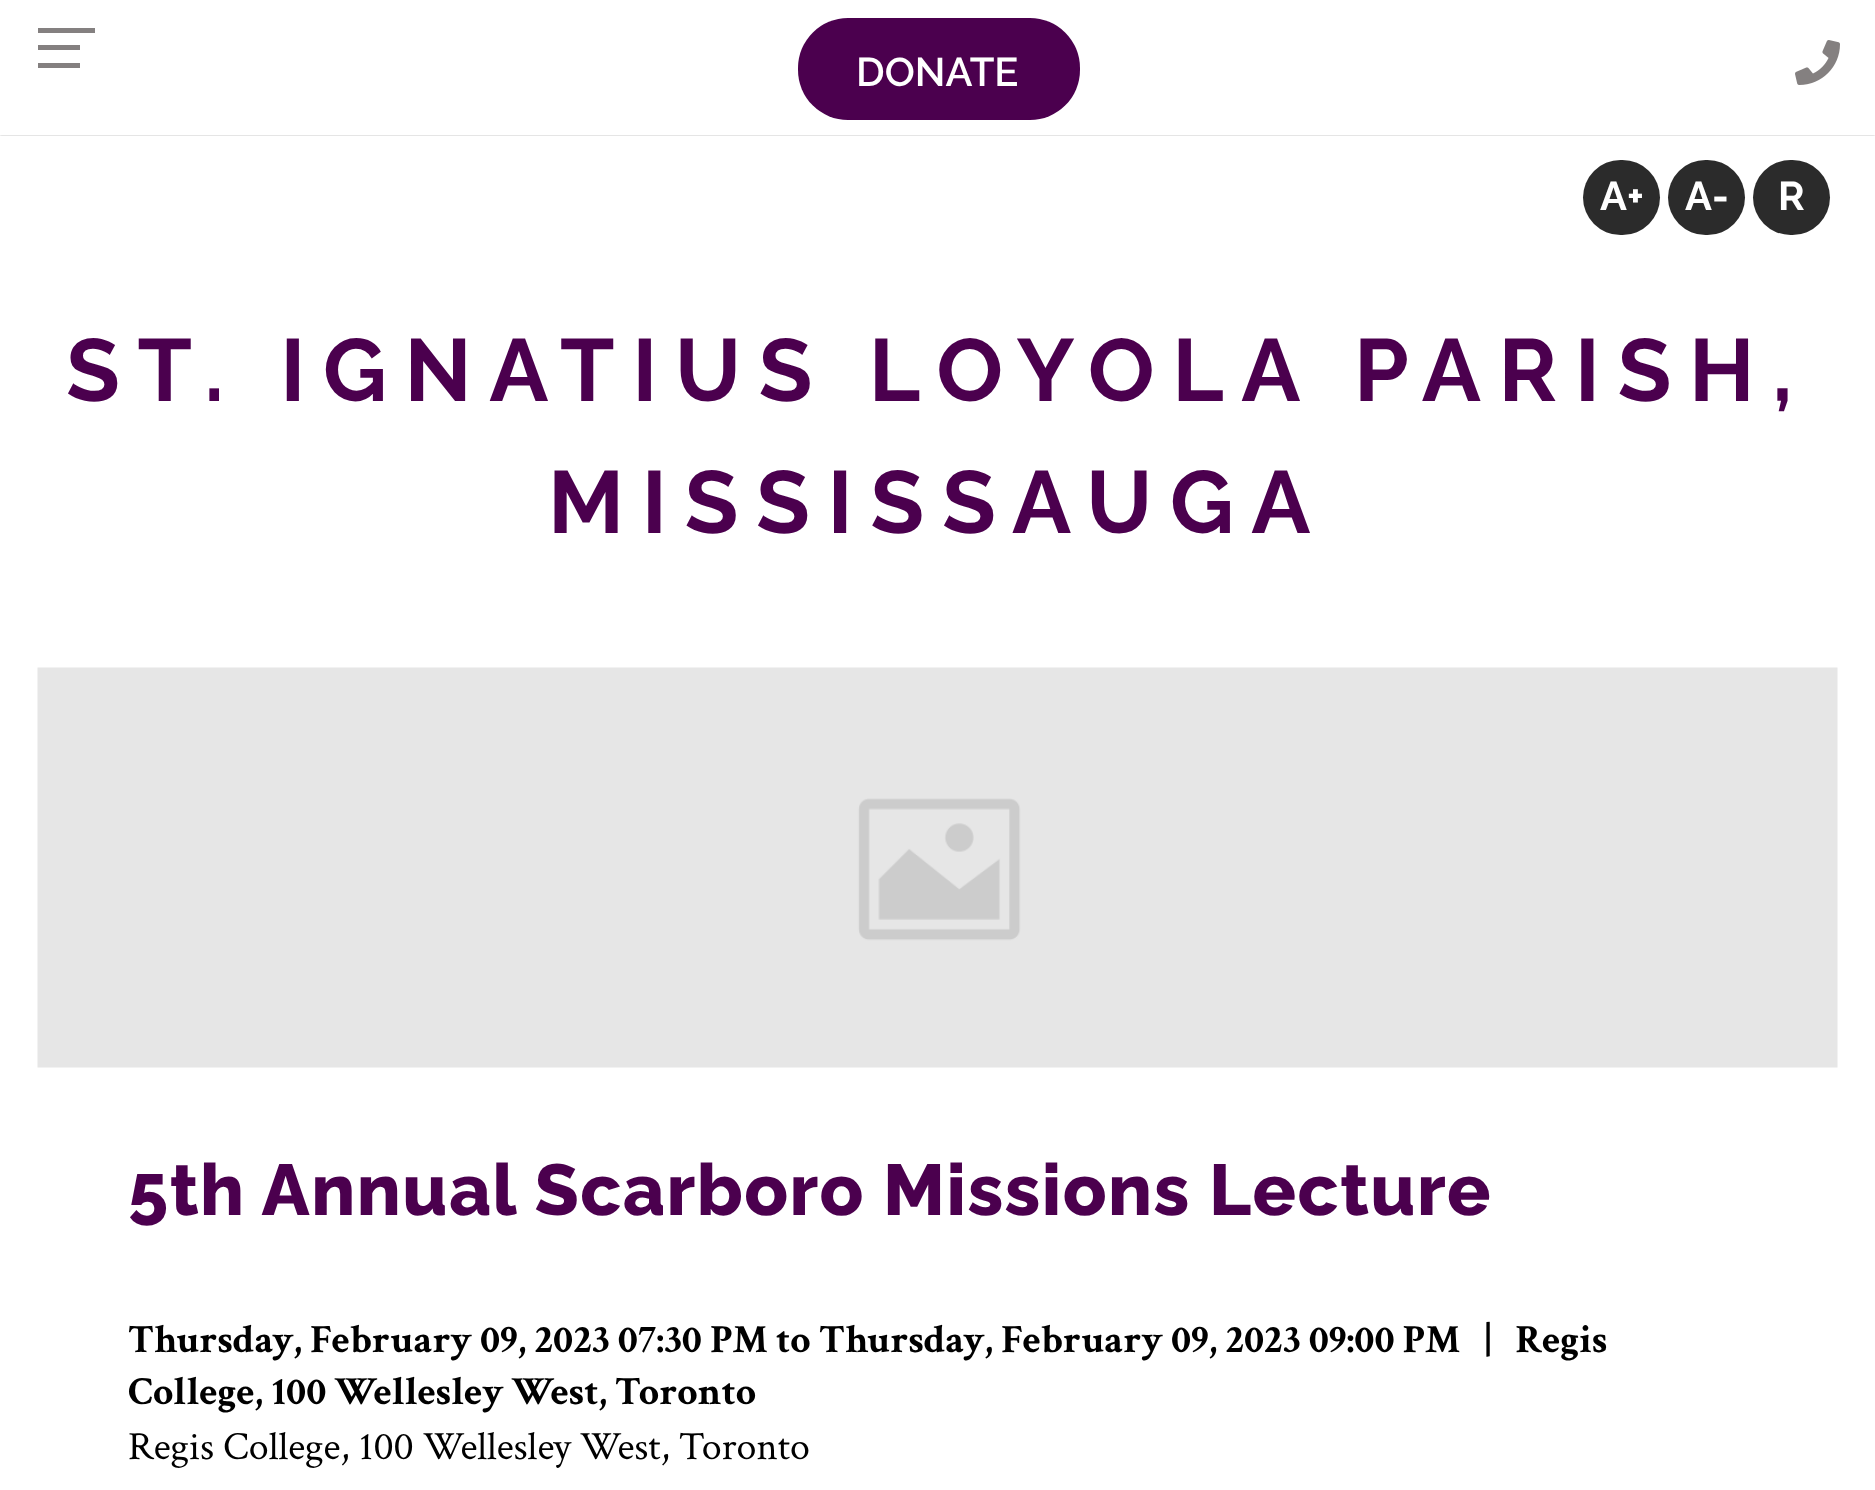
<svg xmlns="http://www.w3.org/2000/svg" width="1875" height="1490">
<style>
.a{font:600 40px Raleway;fill:#fff}
.b{font:bold 40px Raleway;fill:#fff}
.c{font:bold 88px Raleway;letter-spacing:17.6px;fill:#4b004e}
.d{font:800 72px Raleway;letter-spacing:1.45px;fill:#4b004e}
.e{font:bold 40px Crimson Text;fill:#000}
.f{font:40px Crimson Text;fill:#000}
</style>
<defs>
<clipPath id="clip1"><path d="M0 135h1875v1H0z"/></clipPath>
</defs>
<rect width="100%" height="100%" fill="#fff"/>
<g clip-path="url(#clip1)">
<path fill="#0000004d" filter="blur(1px)" d="M0 0h1875v135H0z"/>
</g>
<path fill="#848080" d="M38 45h42v5H38z"/>
<path fill="#848080" d="M38 28h57v5H38z"/>
<path fill="#848080" d="M38 63h42v5H38z"/>
<rect fill="#4b004e" x="798" y="18" width="282" height="102" rx="50"/>
<image href="1.png" x="1795" y="40" width="45" height="45"/>
<rect fill="#2b2b2b" x="1583" y="160" width="77" height="75" rx="37.5"/>
<rect fill="#2b2b2b" x="1668" y="160" width="77" height="75" rx="37.5"/>
<rect fill="#2b2b2b" x="1753" y="160" width="77" height="75" rx="37.5"/>
<image href="2.png" x="37" y="667" width="1801" height="401"/>
<text class="a" x="856" y="86">DONATE</text>
<text class="b" x="1600" y="210">A+</text>
<text class="b" x="1685" y="210">A-</text>
<text class="b" x="1778" y="210">R</text>
<text class="c" x="66" y="401">ST. IGNATIUS LOYOLA PARISH,</text>
<text class="c" x="548" y="533">MISSISSAUGA</text>
<text class="d" x="128" y="1215">5th Annual Scarboro Missions Lecture</text>
<text class="e" xml:space="preserve" x="128" y="1352">Thursday, February 09, 2023 07:30 PM to Thursday, February 09, 2023 09:00 PM   |   Regis</text>
<text class="e" x="128" y="1404">College, 100 Wellesley West, Toronto</text>
<text class="f" x="128" y="1459">Regis College, 100 Wellesley West, Toronto</text>
</svg>
